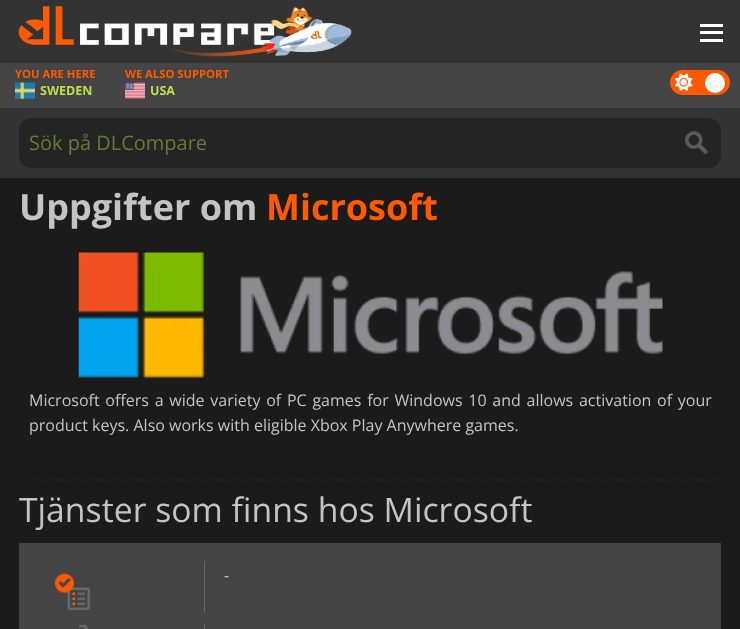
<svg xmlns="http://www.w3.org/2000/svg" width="740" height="629">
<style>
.a{font:bold 11.25px Open Sans;fill:#ff5a00}
.b{font:bold 12.5px Open Sans;fill:#bbdf4d}
.c{font:20px Open Sans;fill:#697937}
.d{font:bold 36px Open Sans;fill:#c4c4c4}
.e{font:bold 36px Open Sans;fill:#ff5a00}
.f{font:16px Open Sans;fill:#c4c4c4}
.g{font:33.75px Open Sans;fill:#c4c4c4}
</style>
<rect width="100%" height="100%" fill="#333"/>
<image href="1.png" x="18" y="6" width="334" height="51"/>
<path fill="#fff" d="M700 39h23v3H700z"/>
<path fill="#fff" d="M700 31h23v3H700z"/>
<path fill="#fff" d="M700 24h23v3H700z"/>
<path fill="#444" d="M0 63h740v45H0z"/>
<image href="2.png" x="15" y="82" width="20" height="17"/>
<image href="3.png" x="125" y="82" width="20" height="17"/>
<rect fill="#ff5a00" x="670" y="70" width="60" height="25" rx="12.5"/>
<image href="4.png" x="675" y="73" width="18" height="18"/>
<circle fill="#fff" cx="715" cy="83" r="10"/>
<image href="5.png" x="706" y="74" width="13" height="16"/>
<rect fill="#242424" x="19" y="118" width="702" height="50" rx="13"/>
<image href="6.png" x="685" y="131" width="23" height="23"/>
<path fill="#1b1b1b" d="M0 178h740v451H0z"/>
<image href="7.png" x="78" y="252" width="585" height="126"/>
<image href="8.png" x="21" y="479" width="698" height="2"/>
<path fill="#444" d="M19 543h702v86H19z"/>
<image href="9.png" x="54" y="573" width="37" height="38"/>
<path fill="#666" d="M204 561h1v52H204z"/>
<image href="10.png" x="78" y="624" width="10" height="5"/>
<path fill="#666" d="M204 624h1v5H204z"/>
<text class="a" x="15" y="78">YOU ARE HERE</text>
<text class="b" x="40" y="95">SWEDEN</text>
<text class="a" x="125" y="78">WE ALSO SUPPORT</text>
<text class="b" x="150" y="95">USA</text>
<text class="c" x="29" y="150">Sök på DLCompare</text>
<text class="d" x="19" y="220">Uppgifter om</text>
<text class="e" x="266" y="220">Microsoft</text>
<text class="f" x="29" y="406" word-spacing="1.6">Microsoft offers a wide variety of PC games for Windows 10 and allows activation of your</text>
<text class="f" x="29" y="431">product keys. Also works with eligible Xbox Play Anywhere games.</text>
<text class="g" x="19" y="522">Tjänster som finns hos Microsoft</text>
<text class="f" x="224" y="581">-</text>
</svg>
